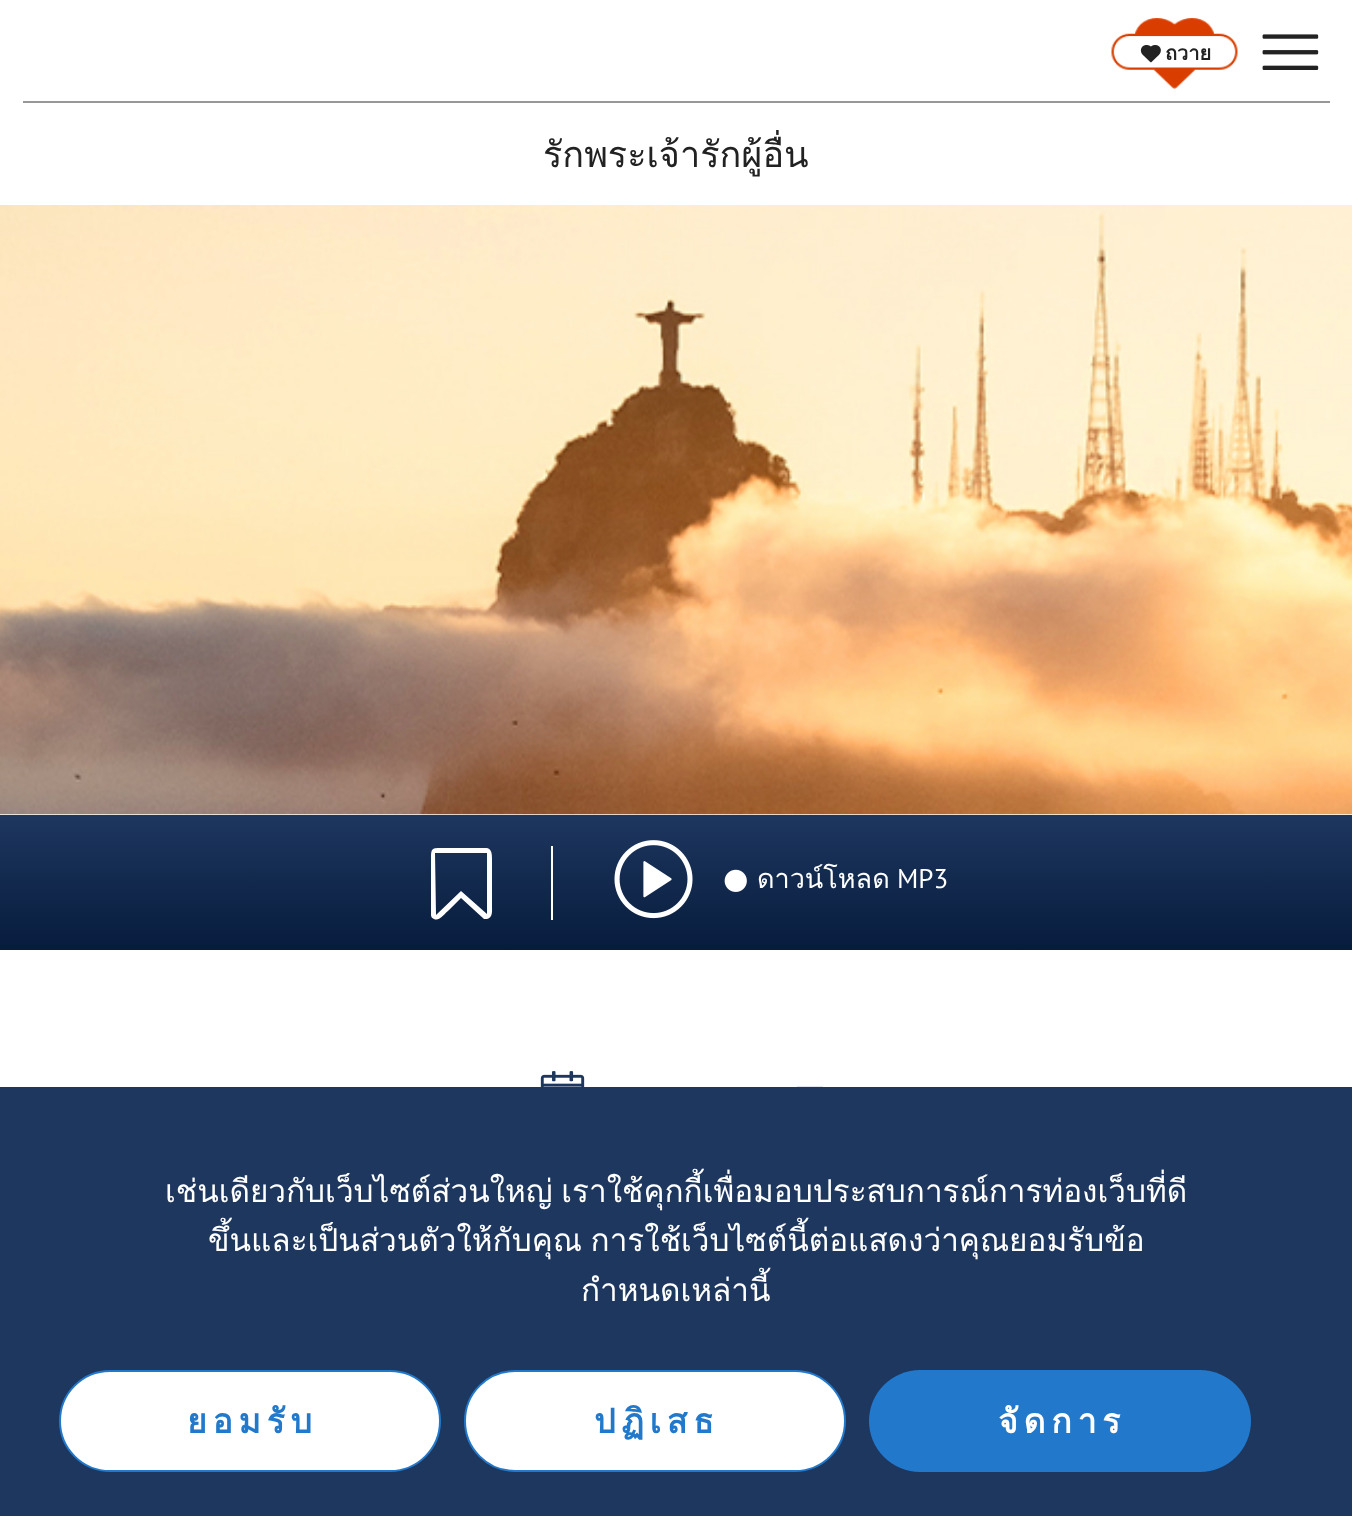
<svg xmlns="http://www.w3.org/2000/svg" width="1352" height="1516">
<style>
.a{font:bold 20px Loma;fill:#222}
.b{font:36px Loma;fill:#222}
.c{font:27px Loma;fill:#fff}
.d{font:27px PT Sans;fill:#fff}
.e{font:31.5px Loma;fill:#fff}
.f{font:bold 33.75px Loma;letter-spacing:5.75px;fill:#2279cb}
.g{font:bold 33.75px Loma;letter-spacing:5.75px;fill:#fff}
</style>
<defs>
<linearGradient id="g1" gradientUnits="userSpaceOnUse" x1="676" y1="814" x2="676" y2="950"><stop offset="0" stop-color="#1e375f"/><stop offset="1" stop-color="#071c3d"/></linearGradient>
</defs>
<rect width="100%" height="100%" fill="#fff"/>
<image href="1.png" x="1111" y="18" width="127" height="71"/>
<image href="2.png" x="1140" y="45" width="21" height="18"/>
<image href="3.png" x="1262" y="34" width="57" height="36"/>
<path fill="#979797" d="M23 101h1307v2H23z"/>
<image href="4.png" x="0" y="205" width="1352" height="610"/>
<path fill="url(#g1)" d="M0 815h1352v135H0z"/>
<path fill="#fff" d="M492 894v-35c0-4 0-11-6-11h-41c-13 0-14-1-14 11v56c0 2 1 3 3 4c5 3 11-6 15-9l12-12l23 21h3c6-1 5-9 5-13zm-5 20l-26-23l-25 24l-1-62h52z"/>
<path fill="#fff" d="M551 846h2v74H551z"/>
<image href="5.png" x="614" y="840" width="79" height="79"/>
<image href="6.png" x="724" y="869" width="23" height="23"/>
<image href="7.png" x="540" y="1071" width="45" height="16"/>
<image href="8.png" x="797" y="1086" width="26" height="1"/>
<path fill="#1e375f" d="M0 1087h1352v429H0z"/>
<rect fill="#fff" stroke="#2279cb" stroke-width="2" x="60" y="1371" width="380" height="100" rx="50"/>
<rect fill="#fff" stroke="#2279cb" stroke-width="2" x="465" y="1371" width="380" height="100" rx="50"/>
<rect fill="#2279cb" x="869" y="1370" width="382" height="102" rx="51"/>
<text class="a" x="1165" y="60">ถวาย</text>
<text class="b" x="543" y="167">รักพระเจ้ารักผู้อื่น</text>
<text class="c" x="757" y="888">ดาวน์โหลด</text>
<text class="d" x="897" y="888">MP3</text>
<text class="e" x="165" y="1202" word-spacing="-2">เช่นเดียวกับเว็บไซต์ส่วนใหญ่ เราใช้คุกกี้เพื่อมอบประสบการณ์การท่องเว็บที่ดี</text>
<text class="e" x="208" y="1251" word-spacing="-2">ขึ้นและเป็นส่วนตัวให้กับคุณ การใช้เว็บไซต์นี้ต่อแสดงว่าคุณยอมรับข้อ</text>
<text class="e" x="581" y="1301">กำหนดเหล่านี้</text>
<text class="f" x="187" y="1433">ยอมรับ</text>
<text class="f" x="594" y="1433">ปฏิเสธ</text>
<text class="g" x="998" y="1433">จัดการ</text>
</svg>
